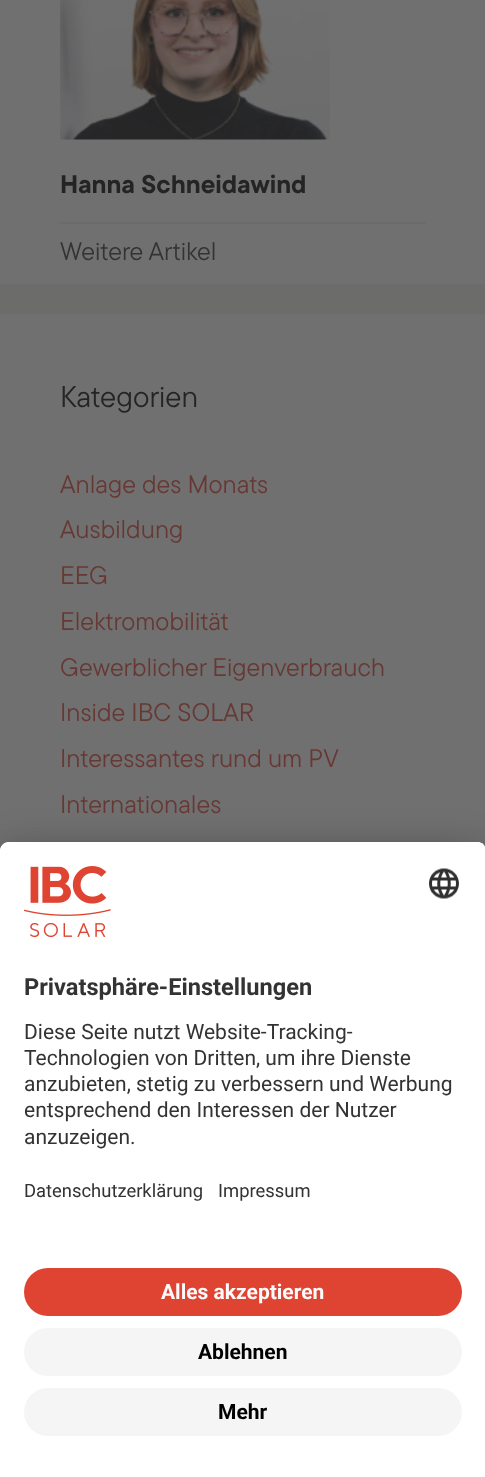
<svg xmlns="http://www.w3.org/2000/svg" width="485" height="1477">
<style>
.a{font:bold 25.5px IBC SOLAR;fill:#242424}
.b{font:25.5px IBC SOLAR;fill:#333}
.c{font:30px IBC SOLAR;fill:#242424}
.d{font:25.5px IBC SOLAR;fill:#673833}
.e{font:bold 23.6px Roboto;fill:#333}
.f{font:21px Roboto;fill:#333}
.g{font:18.4px Roboto;fill:#333}
.h{font:bold 21px Roboto;fill:#fafafa}
.i{font:bold 21px Roboto;fill:#000}
</style>
<rect width="100%" height="100%" fill="#6c6c6b"/>
<path fill="#707070" d="M0 0h485v284H0z"/>
<image href="1.png" x="60" y="0" width="270" height="140"/>
<path fill="#6b6b6b" d="M60 222h366v2H60z"/>
<path fill="#707070" d="M0 314h485v537H0z"/>
<rect fill="#0000004d" filter="blur(21px)" y="872" width="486" height="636" rx="9"/>
<rect fill="#00000038" filter="blur(19.5px)" y="849" width="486" height="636" rx="9"/>
<path fill="#fff" d="M9 842h468c5 0 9 4 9 9v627h-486v-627c0-5 4-9 9-9z"/>
<path fill="#fff" d="M9 842h468c5 0 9 4 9 9v399h-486v-399c0-5 4-9 9-9z"/>
<image href="2.png" x="24" y="866" width="87" height="72"/>
<image href="3.png" x="429" y="868" width="30" height="31"/>
<rect fill="#df4432" x="24" y="1268" width="438" height="48" rx="24"/>
<rect fill="#f5f5f5" x="24" y="1328" width="438" height="48" rx="24"/>
<rect fill="#f5f5f5" x="24" y="1388" width="438" height="48" rx="24"/>
<text class="a" x="60" y="193">Hanna Schneidawind</text>
<text class="b" x="60" y="260">Weitere Artikel</text>
<text class="c" x="60" y="407">Kategorien</text>
<text class="d" x="60" y="493">Anlage des Monats</text>
<text class="d" x="60" y="538">Ausbildung</text>
<text class="d" x="60" y="584">EEG</text>
<text class="d" x="60" y="630">Elektromobilität</text>
<text class="d" x="60" y="676">Gewerblicher Eigenverbrauch</text>
<text class="d" x="60" y="721">Inside IBC SOLAR</text>
<text class="d" x="60" y="767">Interessantes rund um PV</text>
<text class="d" x="60" y="813">Internationales</text>
<text class="e" x="24" y="995">Privatsphäre-Einstellungen</text>
<text class="f" x="24" y="1039">Diese Seite nutzt Website-Tracking-</text>
<text class="f" x="24" y="1065">Technologien von Dritten, um ihre Dienste</text>
<text class="f" x="24" y="1091">anzubieten, stetig zu verbessern und Werbung</text>
<text class="f" x="24" y="1117">entsprechend den Interessen der Nutzer</text>
<text class="f" x="24" y="1144">anzuzeigen.</text>
<text class="g" x="24" y="1197">Datenschutzerklärung</text>
<text class="g" x="218" y="1197">Impressum</text>
<text class="h" x="161" y="1299">Alles akzeptieren</text>
<text class="i" x="198" y="1359">Ablehnen</text>
<text class="i" x="218" y="1419">Mehr</text>
</svg>
